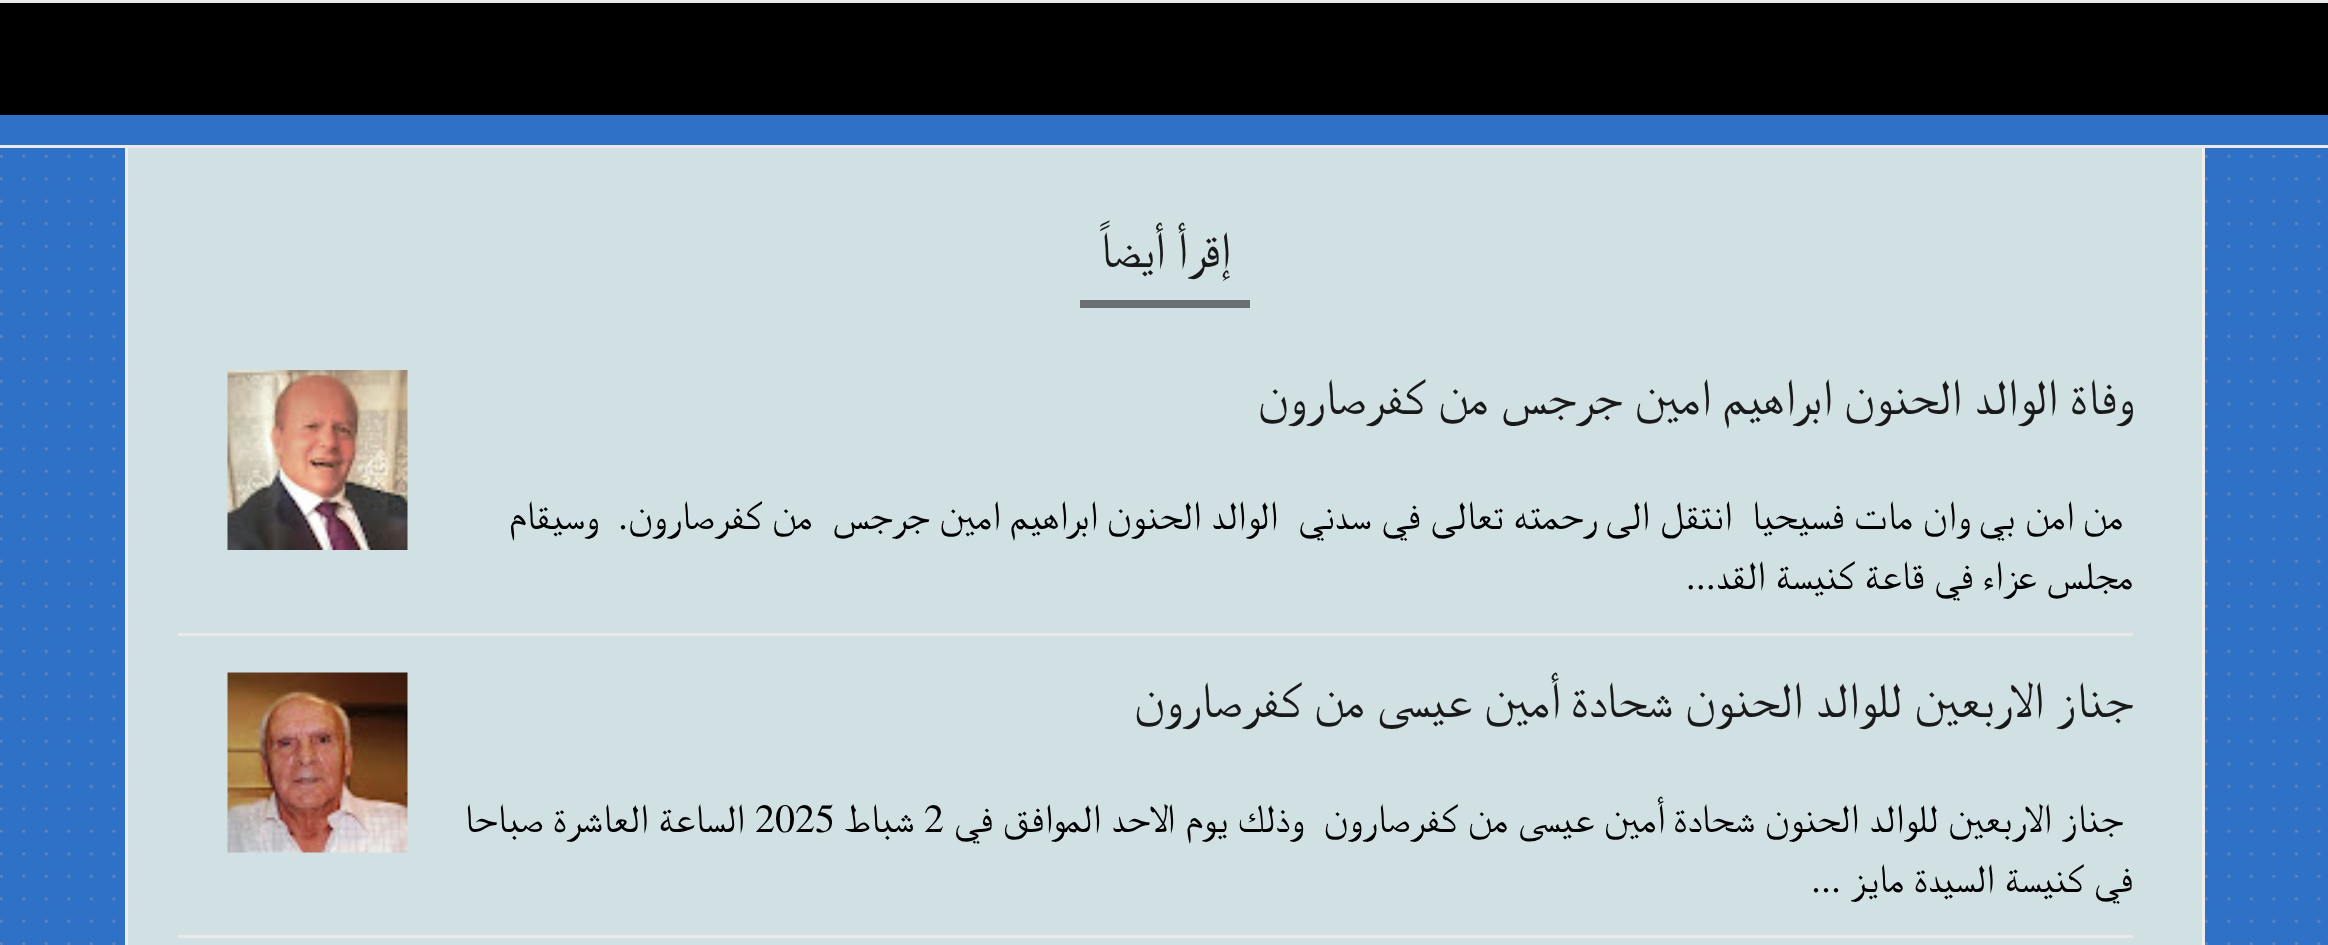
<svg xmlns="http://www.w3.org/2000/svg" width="2328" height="945">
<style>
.a{font:50px FreeSerif;direction:rtl;fill:#191919}
.b{font:40px FreeSerif;direction:rtl;fill:#000}
.c{font:40px FreeSerif;fill:#000}
</style>
<defs>
<clipPath id="clip1"><path d="M428 370h1705v118H428z"/></clipPath>
</defs>
<rect width="100%" height="100%" fill="#2f71c7"/>
<image href="1.png" x="0" y="154" width="2321" height="791"/>
<path fill="#d0e0e3" d="M128 148h2074v797H128z"/>
<path fill="none" stroke="#eee" stroke-width="3" d="M126.5 141.5h2077v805H126.5z"/>
<path fill="#2f71c7" d="M125 140h2080v5H125z"/>
<path fill="#e9e9e9" d="M0 0h2328v3H0z"/>
<path fill="#e9e9e9" d="M0 145h2328v3H0z"/>
<path fill="#000" d="M0 3h2328v112H0z"/>
<path fill="#687072" d="M1080 300h170v8H1080z"/>
<path fill="#e9e9e9" d="M178 633h1955v3H178z"/>
<image href="2.png" x="227" y="370" width="181" height="180"/>
<path fill="#e9e9e9" d="M178 935h1955v3H178z"/>
<image href="3.png" x="227" y="672" width="181" height="181"/>
<text class="a" x="1231" y="267">إقرأ أيضاً</text>
<g clip-path="url(#clip1)">
<text class="a" x="2133" y="414">وفاة الوالد الحنون ابراهيم امين جرجس من كفرصارون</text>
</g>
<text class="b" xml:space="preserve" x="2123" y="529">من امن بي وان مات فسيحيا  انتقل الى رحمته تعالى في سدني  الوالد الحنون ابراهيم امين جرجس  من كفرصارون.  وسيقام</text>
<text class="b" x="2133" y="589">مجلس عزاء في قاعة كنيسة القد...</text>
<text class="a" x="2133" y="717">جناز الاربعين للوالد الحنون شحادة أمين عيسى من كفرصارون</text>
<text class="b" x="2123" y="832">جناز الاربعين للوالد الحنون شحادة أمين عيسى</text>
<text class="b" xml:space="preserve" x="1508" y="832">من كفرصارون  وذلك يوم الاحد الموافق في</text>
<text class="c" x="924" y="832">2</text>
<text class="b" x="914" y="832">شباط</text>
<text class="c" x="755" y="832">2025</text>
<text class="b" x="745" y="832">الساعة العاشرة صباحا</text>
<text class="b" x="2133" y="892">في كنيسة السيدة مايز ...</text>
</svg>
